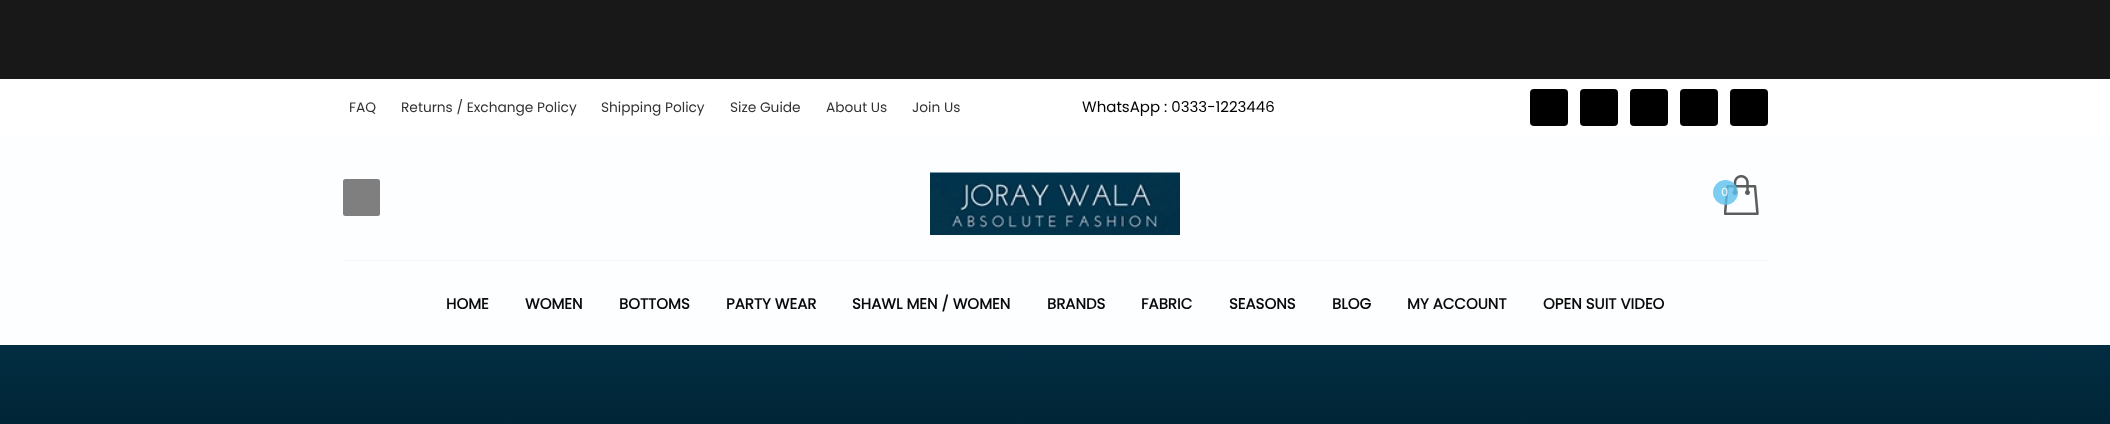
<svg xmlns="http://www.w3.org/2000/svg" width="2110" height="424">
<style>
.a{font:13.75px Poppins;fill:#333}
.b{font:15px Poppins;fill:#000}
.c{font:bold 11px Poppins;fill:#e3f3fa}
.d{font:bold 15px Poppins;fill:#0a0a0a}
</style>
<defs>
<linearGradient id="g1" gradientUnits="userSpaceOnUse" x1="1055" y1="345" x2="1055" y2="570"><stop offset="0" stop-color="#012d42"/><stop offset="1" stop-color="#011721"/></linearGradient>
</defs>
<rect width="100%" height="100%" fill="#181818"/>
<path fill="#fdfeff" d="M0 135h2110v210H0z"/>
<path fill="#fff" d="M0 79h2110v56H0z"/>
<rect fill="#000" x="1530" y="89" width="38" height="37" rx="4"/>
<rect fill="#000" x="1580" y="89" width="38" height="37" rx="4"/>
<rect fill="#000" x="1630" y="89" width="38" height="37" rx="4"/>
<rect fill="#000" x="1680" y="89" width="38" height="37" rx="4"/>
<rect fill="#000" x="1730" y="89" width="38" height="37" rx="4"/>
<rect fill="#7f7f80" x="343" y="179" width="37" height="37" rx="2.5"/>
<image href="1.png" x="930" y="172" width="250" height="63"/>
<image href="2.png" x="1724" y="175" width="35" height="40"/>
<circle fill="#5bc0ebcc" cx="1725.5" cy="192.5" r="12.5"/>
<path fill="#f6f6f7" d="M343 260h1425v1H343z"/>
<path fill="url(#g1)" d="M0 345h2110v79H0z"/>
<text class="a" x="349" y="112">FAQ</text>
<text class="a" x="401" y="112">Returns / Exchange Policy</text>
<text class="a" x="601" y="112">Shipping Policy</text>
<text class="a" x="730" y="112">Size Guide</text>
<text class="a" x="826" y="112">About Us</text>
<text class="a" x="912" y="112">Join Us</text>
<text class="b" x="1082" y="112">WhatsApp : 0333-1223446</text>
<text class="c" x="1721" y="196">0</text>
<text class="d" x="446" y="309">HOME</text>
<text class="d" x="525" y="309">WOMEN</text>
<text class="d" x="619" y="309">BOTTOMS</text>
<text class="d" x="726" y="309">PARTY WEAR</text>
<text class="d" x="852" y="309">SHAWL MEN / WOMEN</text>
<text class="d" x="1047" y="309">BRANDS</text>
<text class="d" x="1141" y="309">FABRIC</text>
<text class="d" x="1229" y="309">SEASONS</text>
<text class="d" x="1332" y="309">BLOG</text>
<text class="d" x="1407" y="309">MY ACCOUNT</text>
<text class="d" x="1543" y="309">OPEN SUIT VIDEO</text>
</svg>
